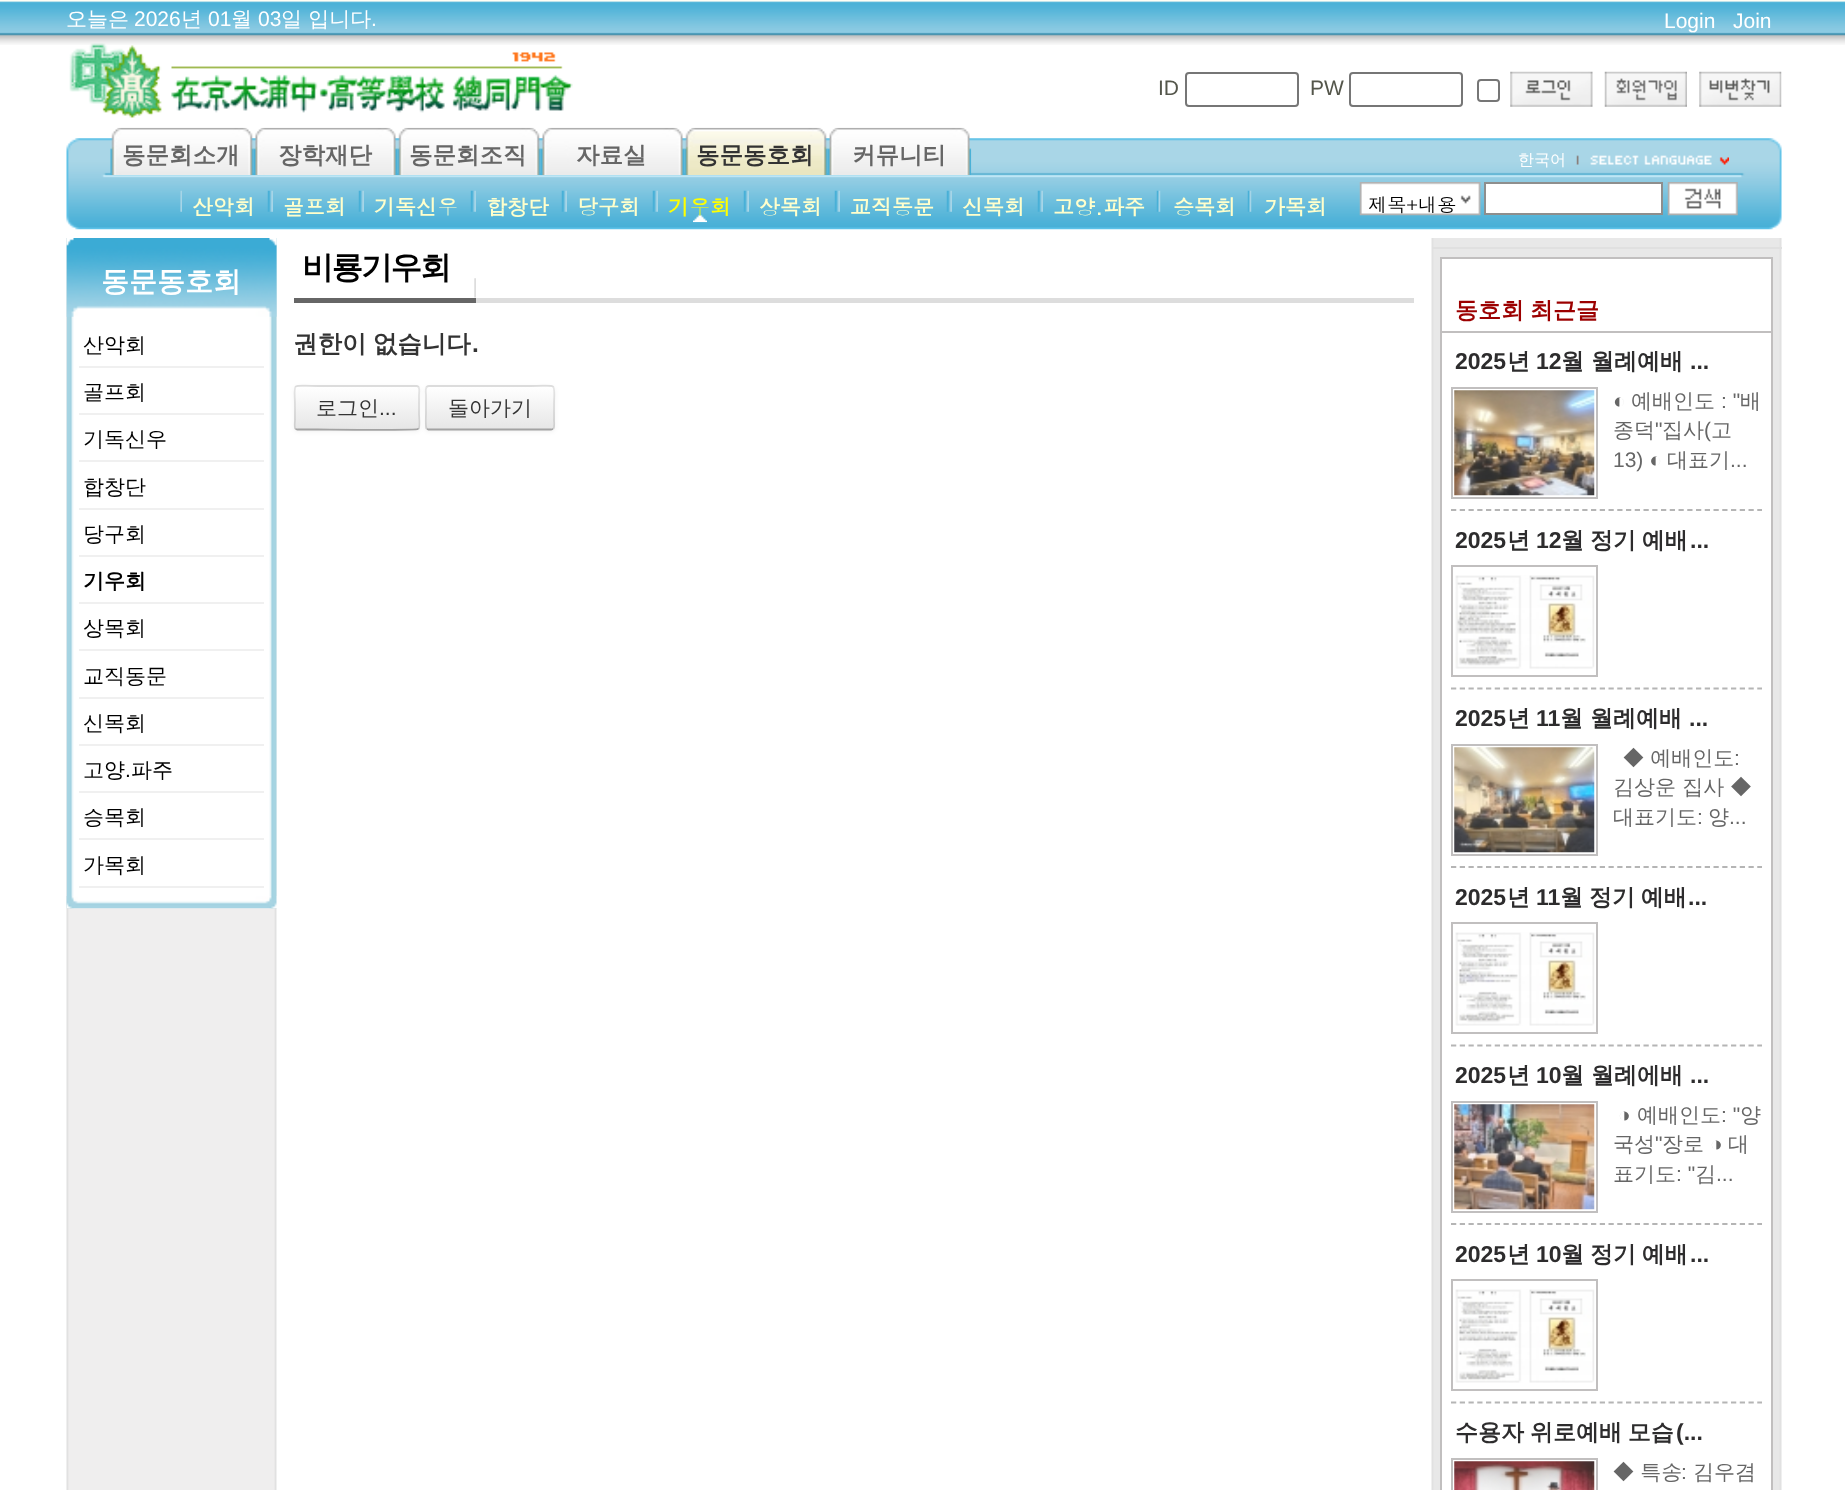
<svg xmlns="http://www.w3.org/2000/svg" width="1845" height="1490">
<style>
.a{font:500 21px WenQuanYi Zen Hei;fill:#fff}
.b{font:21px Liberation Sans;fill:#fff}
.c{font:21px Liberation Sans;fill:#54564b}
.d{font:bold 23.5px WenQuanYi Zen Hei;fill:#666}
.e{font:bold 23.5px WenQuanYi Zen Hei;fill:#333}
.f{font:500 16px WenQuanYi Zen Hei;fill:#fff}
.g{font:bold 21px Dotum;fill:#ffc}
.h{font:bold 21px Dotum;fill:#ff0}
.i{font:19.25px Dotum;fill:#000}
.j{font:bold 28px WenQuanYi Zen Hei;fill:#fff}
.k{font:500 21px WenQuanYi Zen Hei;fill:#000}
.l{font:bold 21px WenQuanYi Zen Hei;fill:#000}
.m{font:21px Liberation Sans;fill:#000}
.n{font:bold 31.5px WenQuanYi Zen Hei;letter-spacing:-2px;fill:#000}
.o{font:bold 24.5px WenQuanYi Zen Hei;fill:#333}
.p{font:bold 24.5px Liberation Sans;fill:#333}
.q{font:500 21px WenQuanYi Zen Hei;fill:#333}
.r{font:21px Liberation Sans;fill:#333}
.s{font:bold 23px WenQuanYi Zen Hei;fill:#9c0000}
.t{font:bold 23px Liberation Sans;fill:#2d2c2d}
.u{font:bold 23px WenQuanYi Zen Hei;fill:#2d2c2d}
.v{font:21px Liberation Sans;fill:#666}
.w{font:500 21px WenQuanYi Zen Hei;fill:#666}
</style>
<defs>
<clipPath id="clip1"><rect x="294" y="385" width="126" height="46" rx="4"/></clipPath>
<linearGradient id="g1" gradientUnits="userSpaceOnUse" x1="357" y1="387" x2="357" y2="429"><stop offset="0" stop-color="#fff"/><stop offset="1" stop-color="#e6e6e6"/></linearGradient>
<clipPath id="clip2"><rect x="425" y="385" width="130" height="46" rx="4"/></clipPath>
<linearGradient id="g2" gradientUnits="userSpaceOnUse" x1="490" y1="387" x2="490" y2="429"><stop offset="0" stop-color="#fff"/><stop offset="1" stop-color="#e6e6e6"/></linearGradient>
</defs>
<rect width="100%" height="100%" fill="#fff"/>
<image href="1.png" x="0" y="0" width="1845" height="45"/>
<image href="2.png" x="66" y="138" width="1716" height="92"/>
<image href="3.png" x="69" y="43" width="504" height="75"/>
<rect fill="none" stroke="#767676" stroke-width="2" x="1186" y="73" width="112" height="33" rx="3"/>
<rect fill="none" stroke="#767676" stroke-width="2" x="1350" y="73" width="112" height="33" rx="3"/>
<rect fill="none" stroke="#767676" stroke-width="2" x="1478" y="80" width="21" height="21" rx="3"/>
<image href="4.png" x="1510" y="71" width="83" height="36"/>
<image href="5.png" x="1604" y="71" width="83" height="36"/>
<image href="6.png" x="1699" y="71" width="83" height="36"/>
<image href="7.png" x="110" y="127" width="144" height="48"/>
<image href="8.png" x="253" y="127" width="145" height="48"/>
<image href="9.png" x="397" y="127" width="144" height="48"/>
<image href="8.png" x="540" y="127" width="145" height="48"/>
<image href="10.png" x="684" y="127" width="144" height="48"/>
<image href="11.png" x="827" y="127" width="145" height="48"/>
<image href="12.png" x="1576" y="155" width="153" height="10"/>
<image href="13.png" x="180" y="190" width="2" height="22"/>
<image href="14.png" x="267" y="190" width="6" height="22"/>
<image href="14.png" x="358" y="190" width="6" height="22"/>
<image href="14.png" x="470" y="190" width="6" height="22"/>
<image href="14.png" x="561" y="190" width="6" height="22"/>
<image href="14.png" x="652" y="190" width="6" height="22"/>
<image href="15.png" x="693" y="214" width="14" height="9"/>
<image href="14.png" x="743" y="190" width="6" height="22"/>
<image href="14.png" x="834" y="190" width="6" height="22"/>
<image href="14.png" x="946" y="190" width="6" height="22"/>
<image href="14.png" x="1037" y="190" width="6" height="22"/>
<image href="16.png" x="1156" y="190" width="5" height="22"/>
<image href="16.png" x="1247" y="190" width="5" height="22"/>
<image href="17.png" x="1359" y="182" width="122" height="34"/>
<path fill="#fff" stroke="#8e8e8d" stroke-width="2" d="M1485 183h177v31H1485z"/>
<image href="18.png" x="1667" y="182" width="71" height="34"/>
<image href="19.png" x="66" y="238" width="1716" height="1252"/>
<path fill="#f4f4f4" d="M276 238h1v658H276z"/>
<image href="20.png" x="66" y="238" width="211" height="671"/>
<image href="21.png" x="66" y="238" width="211" height="79"/>
<path fill="#f0f0f0" d="M79 366h185v2H79z"/>
<path fill="#f0f0f0" d="M79 413h185v2H79z"/>
<path fill="#f0f0f0" d="M79 460h185v2H79z"/>
<path fill="#f0f0f0" d="M79 508h185v2H79z"/>
<path fill="#f0f0f0" d="M79 555h185v2H79z"/>
<path fill="#f0f0f0" d="M79 602h185v2H79z"/>
<path fill="#f0f0f0" d="M79 649h185v2H79z"/>
<path fill="#f0f0f0" d="M79 697h185v2H79z"/>
<path fill="#f0f0f0" d="M79 744h185v2H79z"/>
<path fill="#f0f0f0" d="M79 791h185v2H79z"/>
<path fill="#f0f0f0" d="M79 838h185v2H79z"/>
<path fill="#f0f0f0" d="M79 886h185v2H79z"/>
<path fill="#fff" d="M276 896h1v12H276z"/>
<image href="22.png" x="66" y="896" width="211" height="13"/>
<path fill="#ddd" d="M476 298h938v5H476z"/>
<image href="23.png" x="474" y="278" width="2" height="20"/>
<path fill="#666" d="M294 298h182v5H294z"/>
<rect fill="#0000000d" filter="blur(2px)" x="294" y="387" width="126" height="45" rx="4"/>
<rect fill="#f5f5f5" x="294" y="385" width="126" height="46" rx="4"/>
<g clip-path="url(#clip1)">
<path fill="url(#g1)" d="M294 387h126v42H294z"/>
</g>
<path fill="none" stroke="#a2a2a2" stroke-width="1.8" d="M418.5 429h-.5c-2 1.5-90.5 .5-100.5 .5h-20l-2-.5"/>
<path fill="none" stroke="#0000001a" stroke-width="1.8" d="M295.5 429c-1.5-2-.5-8-.5-8.5v-12.5c0-27.5-5.5-22 22.5-22h99c4 0 2.5 7.5 2.5 9v19c0 2.5 1.5 13-.5 15"/>
<rect fill="#0000000d" filter="blur(2px)" x="425" y="387" width="130" height="45" rx="4"/>
<rect fill="#f5f5f5" x="425" y="385" width="130" height="46" rx="4"/>
<g clip-path="url(#clip2)">
<path fill="url(#g2)" d="M425 387h130v42H425z"/>
</g>
<path fill="none" stroke="#a2a2a2" stroke-width="1.8" d="M553 429l-2 .5h-122.5l-1.5-.5"/>
<path fill="none" stroke="#0000001a" stroke-width="1.8" d="M427 429c-2-2-1-12.5-1-15v-19c0-1.5-1.5-9 3-9h102c28 0 23-5.5 23 22v12.5c0 .5 1 6.5-1 8.5"/>
<path fill="#e0e0e0" d="M1432 247h350v2H1432z"/>
<path fill="#fff" stroke="#c1bfbf" stroke-width="2" d="M1441 258h331v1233H1441z"/>
<path fill="#c1bfbf" d="M1442 331h329v2H1442z"/>
<path fill="none" stroke="#b5b5b5" stroke-width="1.8" stroke-dasharray="5.25 3.5" d="M1451 510h311"/>
<path fill="none" stroke="#c1bfbf" stroke-width="2" d="M1452 388h145v110H1452z"/>
<image href="24.png" x="1454" y="390" width="141" height="106"/>
<path fill="none" stroke="#b5b5b5" stroke-width="1.8" stroke-dasharray="5.25 3.5" d="M1451 688.5h311"/>
<path fill="none" stroke="#c1bfbf" stroke-width="2" d="M1452 566h145v110H1452z"/>
<image href="25.png" x="1455" y="575" width="140" height="94"/>
<path fill="none" stroke="#b5b5b5" stroke-width="1.8" stroke-dasharray="5.25 3.5" d="M1451 867h311"/>
<path fill="none" stroke="#c1bfbf" stroke-width="2" d="M1452 745h145v110H1452z"/>
<image href="26.png" x="1454" y="747" width="141" height="106"/>
<path fill="none" stroke="#b5b5b5" stroke-width="1.8" stroke-dasharray="5.25 3.5" d="M1451 1045.5h311"/>
<path fill="none" stroke="#c1bfbf" stroke-width="2" d="M1452 923h145v110H1452z"/>
<image href="27.png" x="1455" y="932" width="140" height="94"/>
<path fill="none" stroke="#b5b5b5" stroke-width="1.8" stroke-dasharray="5.25 3.5" d="M1451 1224h311"/>
<path fill="none" stroke="#c1bfbf" stroke-width="2" d="M1452 1102h145v110H1452z"/>
<image href="28.png" x="1454" y="1104" width="141" height="106"/>
<path fill="none" stroke="#b5b5b5" stroke-width="1.8" stroke-dasharray="5.25 3.5" d="M1451 1402.5h311"/>
<path fill="none" stroke="#c1bfbf" stroke-width="2" d="M1452 1280h145v110H1452z"/>
<image href="29.png" x="1455" y="1289" width="140" height="94"/>
<path fill="none" stroke="#c1bfbf" stroke-width="2" d="M1452 1459h145v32H1452z"/>
<image href="30.png" x="1454" y="1461" width="141" height="29"/>
<text class="a" x="66" y="26">오늘은</text>
<text class="b" x="134" y="26">2026</text>
<text class="a" x="181" y="26">년</text>
<text class="b" x="208" y="26">01</text>
<text class="a" x="231" y="26">월</text>
<text class="b" x="258" y="26">03</text>
<text class="a" x="281" y="26">일 입니다</text>
<text class="b" x="371" y="26">.</text>
<text class="b" x="1664" y="28">Login</text>
<text class="b" x="1733" y="28">Join</text>
<text class="c" x="1158" y="95">ID</text>
<text class="c" x="1310" y="95">PW</text>
<text class="d" x="122" y="163">동문회소개</text>
<text class="d" x="278" y="163">장학재단</text>
<text class="d" x="409" y="163">동문회조직</text>
<text class="d" x="576" y="163">자료실</text>
<text class="e" x="696" y="163">동문동호회</text>
<text class="d" x="852" y="163">커뮤니티</text>
<text class="f" x="1518" y="165">한국어</text>
<text class="g" x="192" y="215">산악회</text>
<text class="g" x="283" y="215">골프회</text>
<text class="g" x="374" y="215">기독신우</text>
<text class="g" x="486" y="215">합창단</text>
<text class="g" x="577" y="215">당구회</text>
<text class="h" x="668" y="215">기우회</text>
<text class="g" x="759" y="215">상목회</text>
<text class="g" x="850" y="215">교직동문</text>
<text class="g" x="962" y="215">신목회</text>
<text class="g" x="1053" y="215">고양.파주</text>
<text class="g" x="1173" y="215">승목회</text>
<text class="g" x="1264" y="215">가목회</text>
<text class="i" x="1368" y="212">제목+내용</text>
<text class="j" x="101" y="291">동문동호회</text>
<text class="k" x="83" y="352">산악회</text>
<text class="k" x="83" y="399">골프회</text>
<text class="k" x="83" y="446">기독신우</text>
<text class="k" x="83" y="494">합창단</text>
<text class="k" x="83" y="541">당구회</text>
<text class="l" x="83" y="588">기우회</text>
<text class="k" x="83" y="635">상목회</text>
<text class="k" x="83" y="683">교직동문</text>
<text class="k" x="83" y="730">신목회</text>
<text class="k" x="83" y="777">고양</text>
<text class="m" x="125" y="777">.</text>
<text class="k" x="131" y="777">파주</text>
<text class="k" x="83" y="824">승목회</text>
<text class="k" x="83" y="872">가목회</text>
<text class="n" x="302" y="278">비룡기우회</text>
<text class="o" x="293" y="352" word-spacing="-1">권한이 없습니다</text>
<text class="p" x="472" y="352">.</text>
<text class="q" x="316" y="415">로그인</text>
<text class="r" x="379" y="415">...</text>
<text class="q" x="448" y="415">돌아가기</text>
<text class="s" x="1455" y="318" word-spacing="-1">동호회 최근글</text>
<text class="t" x="1455" y="369">2025</text>
<text class="u" x="1507" y="369">년</text>
<text class="t" x="1536" y="369">12</text>
<text class="u" x="1561" y="369">월 월례예배</text>
<text class="t" x="1690" y="369">...</text>
<text class="v" x="1613" y="408">◐</text>
<text class="w" x="1631" y="408">예배인도</text>
<text class="v" x="1721" y="408">: "</text>
<text class="w" x="1740" y="408">배</text>
<text class="w" x="1613" y="437">종덕</text>
<text class="v" x="1655" y="437">"</text>
<text class="w" x="1662" y="437">집사</text>
<text class="v" x="1704" y="437">(</text>
<text class="w" x="1711" y="437">고</text>
<text class="v" x="1613" y="467">13) ◐</text>
<text class="w" x="1667" y="467">대표기</text>
<text class="v" x="1730" y="467">...</text>
<text class="t" x="1455" y="548">2025</text>
<text class="u" x="1507" y="548">년</text>
<text class="t" x="1536" y="548">12</text>
<text class="u" x="1561" y="548" word-spacing="-1">월 정기 예배</text>
<text class="t" x="1690" y="548">...</text>
<text class="t" x="1455" y="726">2025</text>
<text class="u" x="1507" y="726">년</text>
<text class="t" x="1536" y="726">11</text>
<text class="u" x="1560" y="726">월 월례예배</text>
<text class="t" x="1689" y="726">...</text>
<text class="w" x="1623" y="765">◆ 예배인도</text>
<text class="v" x="1734" y="765">:</text>
<text class="w" x="1613" y="794">김상운 집사 ◆</text>
<text class="w" x="1613" y="824">대표기도</text>
<text class="v" x="1697" y="824">:</text>
<text class="w" x="1708" y="824">양</text>
<text class="v" x="1729" y="824">...</text>
<text class="t" x="1455" y="905">2025</text>
<text class="u" x="1507" y="905">년</text>
<text class="t" x="1536" y="905">11</text>
<text class="u" x="1560" y="905" word-spacing="-1">월 정기 예배</text>
<text class="t" x="1688" y="905">...</text>
<text class="t" x="1455" y="1083">2025</text>
<text class="u" x="1507" y="1083">년</text>
<text class="t" x="1536" y="1083">10</text>
<text class="u" x="1561" y="1083">월 월례에배</text>
<text class="t" x="1690" y="1083">...</text>
<text class="v" x="1618" y="1122">◑</text>
<text class="w" x="1637" y="1122">예배인도</text>
<text class="v" x="1721" y="1122">: "</text>
<text class="w" x="1740" y="1122">양</text>
<text class="w" x="1613" y="1151">국성</text>
<text class="v" x="1655" y="1151">"</text>
<text class="w" x="1662" y="1151">장로</text>
<text class="w" x="1728" y="1151">대</text>
<text class="v" x="1710" y="1151">◑</text>
<text class="w" x="1613" y="1181">표기도</text>
<text class="v" x="1676" y="1181">: "</text>
<text class="w" x="1695" y="1181">김</text>
<text class="v" x="1716" y="1181">...</text>
<text class="t" x="1455" y="1262">2025</text>
<text class="u" x="1507" y="1262">년</text>
<text class="t" x="1536" y="1262">10</text>
<text class="u" x="1561" y="1262" word-spacing="-1">월 정기 예배</text>
<text class="t" x="1690" y="1262">...</text>
<text class="u" x="1455" y="1440" word-spacing="-1">수용자 위로예배 모습</text>
<text class="t" x="1676" y="1440">(...</text>
<text class="w" x="1613" y="1479">◆ 특송</text>
<text class="v" x="1681" y="1479">:</text>
<text class="w" x="1693" y="1479">김우겸</text>
</svg>
